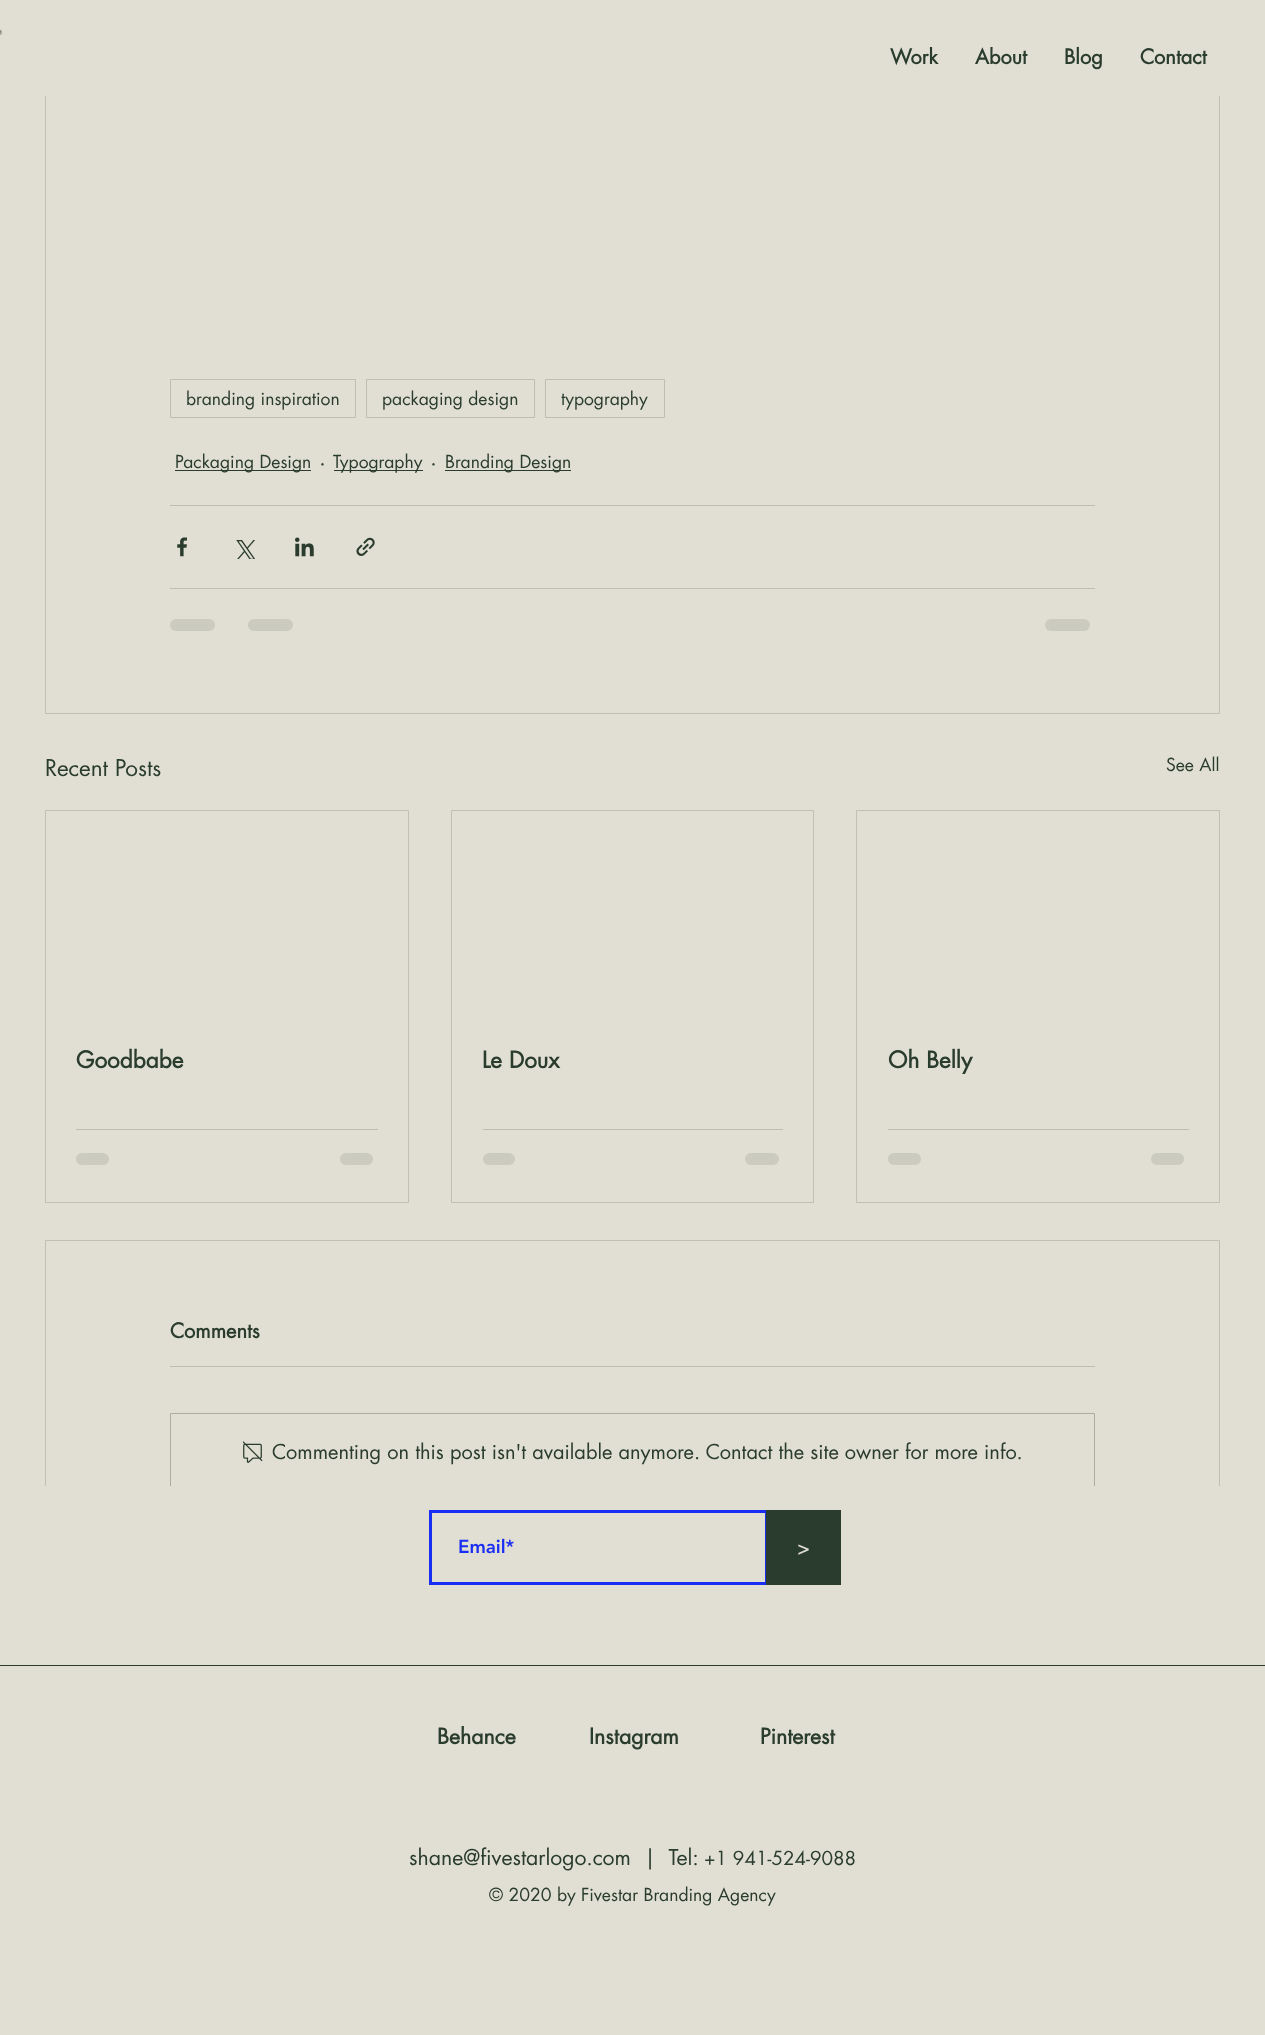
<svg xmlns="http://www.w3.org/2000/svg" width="1265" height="2035">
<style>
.a{font:bold 20px futura;fill:#2a3c2d}
.b{font:17.5px futura;fill:#2a3c2d}
.c{font:22.5px futura;fill:#2a3c2d}
.d{font:bold 22.5px futura;fill:#2a3c2d}
.e{font:20px futura;fill:#2a3c2d}
.f{font:900 18.75px 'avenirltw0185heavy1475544';fill:#1a2df3}
.g{font:21.25px futura;fill:#e1dfd4}
.h{font:bold 21.25px futura;fill:#2a3c2d}
.i{font:21.25px futura;fill:#2a3c2d}
.j{font:18.75px futura;fill:#2a3c2d}
</style>
<rect width="100%" height="100%" fill="#e1dfd4"/>
<image href="1.png" x="0" y="29" width="3" height="7"/>
<path fill="none" stroke="#bfc0b5" d="M45.5 -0.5h1174v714H45.5z"/>
<path fill="#e1dfd4" d="M45 0h1175v96H45z"/>
<path fill="none" stroke="#bcbeb3" d="M170.5 379.5h185v38H170.5z"/>
<path fill="none" stroke="#bcbeb3" d="M366.5 379.5h168v38H366.5z"/>
<path fill="none" stroke="#bcbeb3" d="M545.5 379.5h119v38H545.5z"/>
<path fill="#2a3c2d" d="M175 470h136v1H175z"/>
<path fill="#2a3c2d" d="M334 470h89v1H334z"/>
<path fill="#2a3c2d" d="M445 470h126v1H445z"/>
<path fill="#bcbeb3" d="M170 505h925v1H170z"/>
<image href="2.png" x="177" y="537" width="10" height="20"/>
<image href="3.png" x="236" y="540" width="19" height="19"/>
<image href="4.png" x="295" y="537" width="19" height="20"/>
<image href="5.png" x="356" y="537" width="19" height="19"/>
<path fill="#bcbeb3" d="M170 588h925v1H170z"/>
<rect fill="#cbcbc0" x="170" y="619" width="45" height="12" rx="6"/>
<rect fill="#cbcbc0" x="248" y="619" width="45" height="12" rx="6"/>
<rect fill="#cbcbc0" x="1045" y="619" width="45" height="12" rx="6"/>
<path fill="none" stroke="#bfc0b5" d="M45.5 810.5h363v392H45.5z"/>
<path fill="#bcbeb3" d="M76 1129h302v1H76z"/>
<rect fill="#cbcbc0" x="76" y="1153" width="33" height="12" rx="6"/>
<rect fill="#cbcbc0" x="340" y="1153" width="33" height="12" rx="6"/>
<path fill="none" stroke="#bfc0b5" d="M451.5 810.5h362v392H451.5z"/>
<path fill="#bcbeb3" d="M483 1129h300v1H483z"/>
<rect fill="#cbcbc0" x="483" y="1153" width="32" height="12" rx="6"/>
<rect fill="#cbcbc0" x="745" y="1153" width="34" height="12" rx="6"/>
<path fill="none" stroke="#bfc0b5" d="M856.5 810.5h363v392H856.5z"/>
<path fill="#bcbeb3" d="M888 1129h301v1H888z"/>
<rect fill="#cbcbc0" x="888" y="1153" width="33" height="12" rx="6"/>
<rect fill="#cbcbc0" x="1151" y="1153" width="33" height="12" rx="6"/>
<path fill="none" stroke="#bfc0b5" d="M45.5 1240.5h1174v338H45.5z"/>
<path fill="#bcbeb3" d="M170 1366h925v1H170z"/>
<path fill="none" stroke="#aaaea2" d="M170.5 1413.5h924v79H170.5z"/>
<image href="6.png" x="243" y="1441" width="20" height="22"/>
<path fill="#e1dfd4" d="M45 1486h1175v93H45z"/>
<path fill="none" stroke="#1a2df3" stroke-width="3" d="M430.5 1511.5h336v72H430.5z"/>
<path fill="#2a3c2d" d="M766 1510h75v75H766z"/>
<path fill="#2a3c2d" d="M0 1665h1265v1H0z"/>
<text class="a" x="890" y="64">Work</text>
<text class="a" x="975" y="64">About</text>
<text class="a" x="1064" y="64">Blog</text>
<text class="a" x="1140" y="64">Contact</text>
<text class="b" x="186" y="405">branding inspiration</text>
<text class="b" x="382" y="405">packaging design</text>
<text class="b" x="561" y="405">typography</text>
<text class="b" x="175" y="468">Packaging Design</text>
<text class="c" x="319" y="470">·</text>
<text class="b" x="333" y="468">Typography</text>
<text class="c" x="430" y="470">·</text>
<text class="b" x="445" y="468">Branding Design</text>
<text class="c" x="45" y="776">Recent Posts</text>
<text class="b" x="1166" y="771">See All</text>
<text class="d" x="76" y="1068">Goodbabe</text>
<text class="d" x="482" y="1068">Le Doux</text>
<text class="d" x="888" y="1068">Oh Belly</text>
<text class="a" x="170" y="1338">Comments</text>
<text class="e" x="272" y="1459">Commenting on this post isn't available anymore. Contact the site owner for more info.</text>
<text class="f" x="458" y="1553">Email*</text>
<text class="g" x="797" y="1555">&gt;</text>
<text class="h" x="437" y="1744">Behance</text>
<text class="h" x="589" y="1744">Instagram</text>
<text class="h" x="760" y="1744">Pinterest</text>
<text class="i" x="409" y="1865">shane@fivestarlogo.com</text>
<text class="i" xml:space="preserve" x="644" y="1865">|  Tel:</text>
<text class="j" x="704" y="1865">+1 941-524-9088</text>
<text class="b" x="489" y="1901">© 2020 by Fivestar Branding Agency</text>
</svg>
